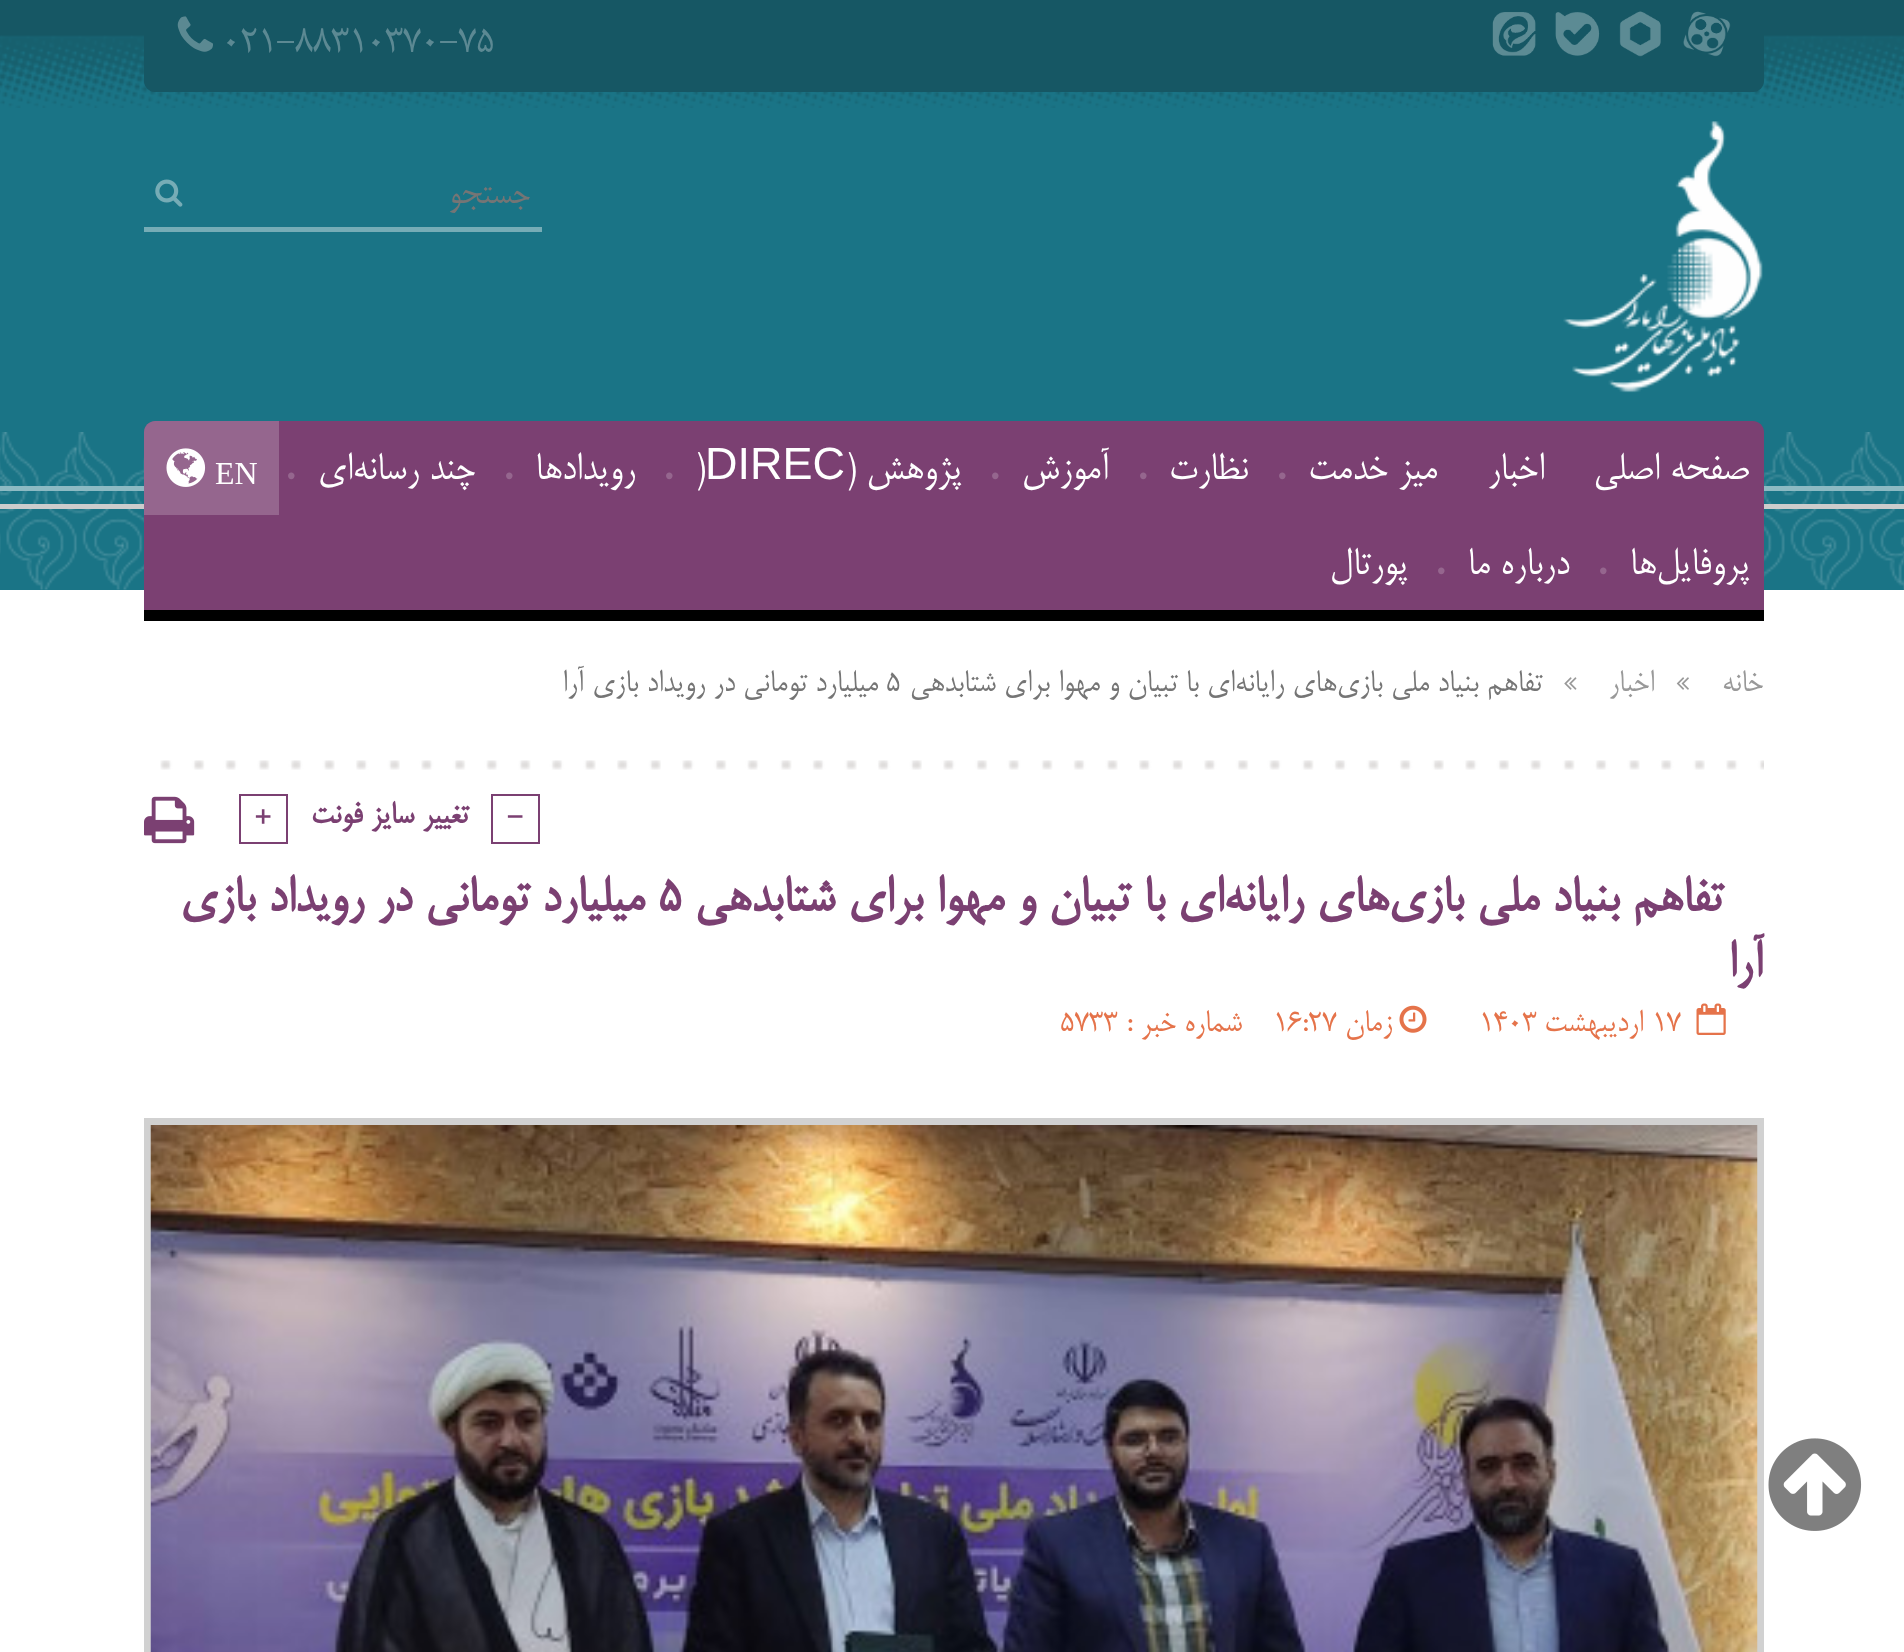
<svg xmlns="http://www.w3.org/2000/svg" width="1904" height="1652">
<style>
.a{font:45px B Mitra;fill:#5c8993}
.b{font:40.5px B Mitra;direction:rtl;fill:#757575}
.c{font:45px B Mitra;direction:rtl;fill:#fff}
.d{font:63px B Mitra;fill:#95668e}
.e{font:45px Liberation Sans;fill:#fff}
.f{font:45px B Mitra;fill:#fff}
.g{font:32px Liberation Serif;fill:#fff}
.h{font:36px B Mitra;direction:rtl;fill:#999}
.i{font:36px B Mitra;direction:rtl;fill:#757575}
.j{font:36px B Mitra;fill:#757575}
.k{font:bold 36px B Mitra;fill:#7b4072}
.l{font:bold 36px B Mitra;direction:rtl;fill:#7b4072}
.m{font:bold 58.5px B Mitra;direction:rtl;fill:#7b4072}
.n{font:bold 58.5px B Mitra;fill:#7b4072}
.o{font:36px B Mitra;fill:#e5734a}
.p{font:36px B Mitra;direction:rtl;fill:#e5734a}
</style>
<rect width="100%" height="100%" fill="#fff"/>
<path fill="#1a7486" d="M0 108h1904v482H0z"/>
<image href="1.png" x="0" y="432" width="1904" height="158"/>
<image href="2.png" x="0" y="0" width="1904" height="108"/>
<path fill="#165764" d="M144 0h1620v81c0 6-5 11-11 11h-1598c-6 0-11-5-11-11z"/>
<image href="3.png" x="1683" y="11" width="48" height="46"/>
<image href="4.png" x="1619" y="11" width="42" height="46"/>
<image href="5.png" x="1555" y="12" width="45" height="44"/>
<image href="6.png" x="1492" y="12" width="44" height="44"/>
<image href="7.png" x="177" y="16" width="36" height="36"/>
<image href="8.png" x="1563" y="121" width="200" height="272"/>
<path fill="#76acb6" d="M144 227h398v5H144z"/>
<image href="9.png" x="155" y="179" width="28" height="28"/>
<path fill="#8dbac3" d="M0 486h1904v5H0z"/>
<path fill="#ccc" d="M0 504h1904v5H0z"/>
<path fill="#7b4072" d="M155 421h1598c6 0 11 5 11 11v189h-1620v-189c0-6 5-11 11-11z"/>
<path fill="#000" d="M144 610h1620v11H144z"/>
<path fill="#ffffff33" d="M155 421h124v94h-135v-83c0-6 5-11 11-11z"/>
<image href="10.png" x="166" y="448" width="40" height="39"/>
<image href="11.png" x="1676" y="677" width="13" height="13"/>
<image href="12.png" x="1564" y="677" width="13" height="13"/>
<image href="13.png" x="160" y="760" width="1604" height="10"/>
<path fill="none" stroke="#7b4072" stroke-width="2" d="M492 795h47v48H492z"/>
<path fill="none" stroke="#7b4072" stroke-width="2" d="M240 795h47v48H240z"/>
<image href="14.png" x="144" y="796" width="51" height="48"/>
<image href="15.png" x="1696" y="1003" width="30" height="32"/>
<image href="16.png" x="1399" y="1005" width="28" height="28"/>
<path fill="none" stroke="#d1d1d1" stroke-width="7" d="M147.5 1121.5h1613v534H147.5z"/>
<image href="17.png" x="150" y="1125" width="1608" height="527"/>
<image href="18.png" x="1768" y="1438" width="94" height="93"/>
<text class="a" x="222" y="52">021-88310370-75</text>
<text class="b" x="530" y="203">جستجو</text>
<text class="c" x="1749" y="479">صفحه اصلی</text>
<text class="c" x="1544" y="479">اخبار</text>
<text class="c" x="1437" y="479">میز خدمت</text>
<text class="d" x="1275" y="479">.</text>
<text class="c" x="1248" y="479">نظارت</text>
<text class="d" x="1136" y="479">.</text>
<text class="c" x="1109" y="479">آموزش</text>
<text class="d" x="988" y="479">.</text>
<text class="c" x="961" y="479">پژوهش (</text>
<text class="e" x="705" y="479">DIREC</text>
<text class="f" x="695" y="479">)</text>
<text class="d" x="662" y="479">.</text>
<text class="c" x="635" y="479">رویدادها</text>
<text class="d" x="502" y="479">.</text>
<text class="c" x="475" y="479">چند رسانه‌ای</text>
<text class="d" x="284" y="479">.</text>
<text class="c" x="1749" y="574">پروفایل‌ها</text>
<text class="d" x="1596" y="574">.</text>
<text class="c" x="1569" y="574">درباره ما</text>
<text class="d" x="1434" y="574">.</text>
<text class="c" x="1407" y="574">پورتال</text>
<text class="g" x="215" y="484">EN</text>
<text class="h" x="1763" y="691">خانه</text>
<text class="h" x="1654" y="691">اخبار</text>
<text class="i" x="1542" y="691">تفاهم بنیاد ملی بازی‌های رایانه‌ای با تبیان و مهوا برای شتابدهی</text>
<text class="j" x="886" y="691">۵</text>
<text class="i" x="878" y="691">میلیارد تومانی در رویداد بازی آرا</text>
<text class="k" x="507" y="825">-</text>
<text class="l" x="468" y="823">تغییر سایز فونت</text>
<text class="k" x="255" y="825">+</text>
<text class="m" x="1722" y="911">تفاهم بنیاد ملی بازی‌های رایانه‌ای با تبیان و مهوا برای شتابدهی</text>
<text class="n" x="658" y="911">۵</text>
<text class="m" x="644" y="911">میلیارد تومانی در رویداد بازی</text>
<text class="m" x="1763" y="976">آرا</text>
<text class="o" x="1652" y="1031">١٧</text>
<text class="p" x="1643" y="1031">ارديبهشت</text>
<text class="o" x="1479" y="1031">١٤٠٣</text>
<text class="p" x="1392" y="1031">زمان</text>
<text class="o" x="1273" y="1031">١٦:٢٧</text>
<text class="p" x="1242" y="1031">شماره خبر :</text>
<text class="o" x="1060" y="1031">5733</text>
</svg>
